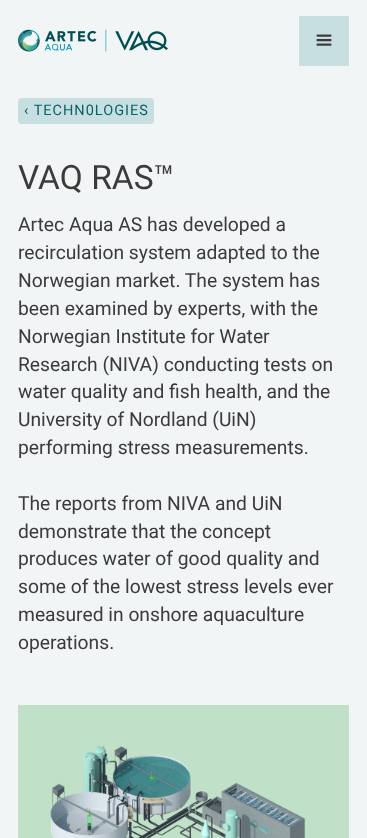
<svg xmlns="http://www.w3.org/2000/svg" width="367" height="838">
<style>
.a{font:14.5px Roboto;letter-spacing:1px;fill:#0a616a}
.b{font:33.5px Roboto;fill:#3b3b3b}
.c{font:19.25px Roboto;fill:#3b3b3b}
</style>
<rect width="100%" height="100%" fill="#f1f5f5"/>
<image href="1.png" x="18" y="29" width="150" height="23"/>
<path fill="#c7dfe0" d="M299 16h50v50H299z"/>
<image href="2.png" x="316" y="34" width="16" height="12"/>
<rect fill="#c7dfe0" x="18" y="98" width="136" height="26" rx="4"/>
<path fill="#c0e1c7" d="M18 705h331v133H18z"/>
<image href="3.png" x="50" y="745" width="256" height="93"/>
<text class="a" x="24" y="115">‹ TECHN0LOGIES</text>
<text class="b" x="18" y="189">VAQ RAS™</text>
<text class="c" x="18" y="231">Artec Aqua AS has developed a</text>
<text class="c" x="18" y="259">recirculation system adapted to the</text>
<text class="c" x="18" y="287">Norwegian market. The system has</text>
<text class="c" x="18" y="315">been examined by experts, with the</text>
<text class="c" x="18" y="343">Norwegian Institute for Water</text>
<text class="c" x="18" y="371">Research (NIVA) conducting tests on</text>
<text class="c" x="18" y="398">water quality and fish health, and the</text>
<text class="c" x="18" y="426">University of Nordland (UiN)</text>
<text class="c" x="18" y="454">performing stress measurements.</text>
<text class="c" x="18" y="510">The reports from NIVA and UiN</text>
<text class="c" x="18" y="538">demonstrate that the concept</text>
<text class="c" x="18" y="565">produces water of good quality and</text>
<text class="c" x="18" y="593">some of the lowest stress levels ever</text>
<text class="c" x="18" y="621">measured in onshore aquaculture</text>
<text class="c" x="18" y="649">operations.</text>
</svg>
